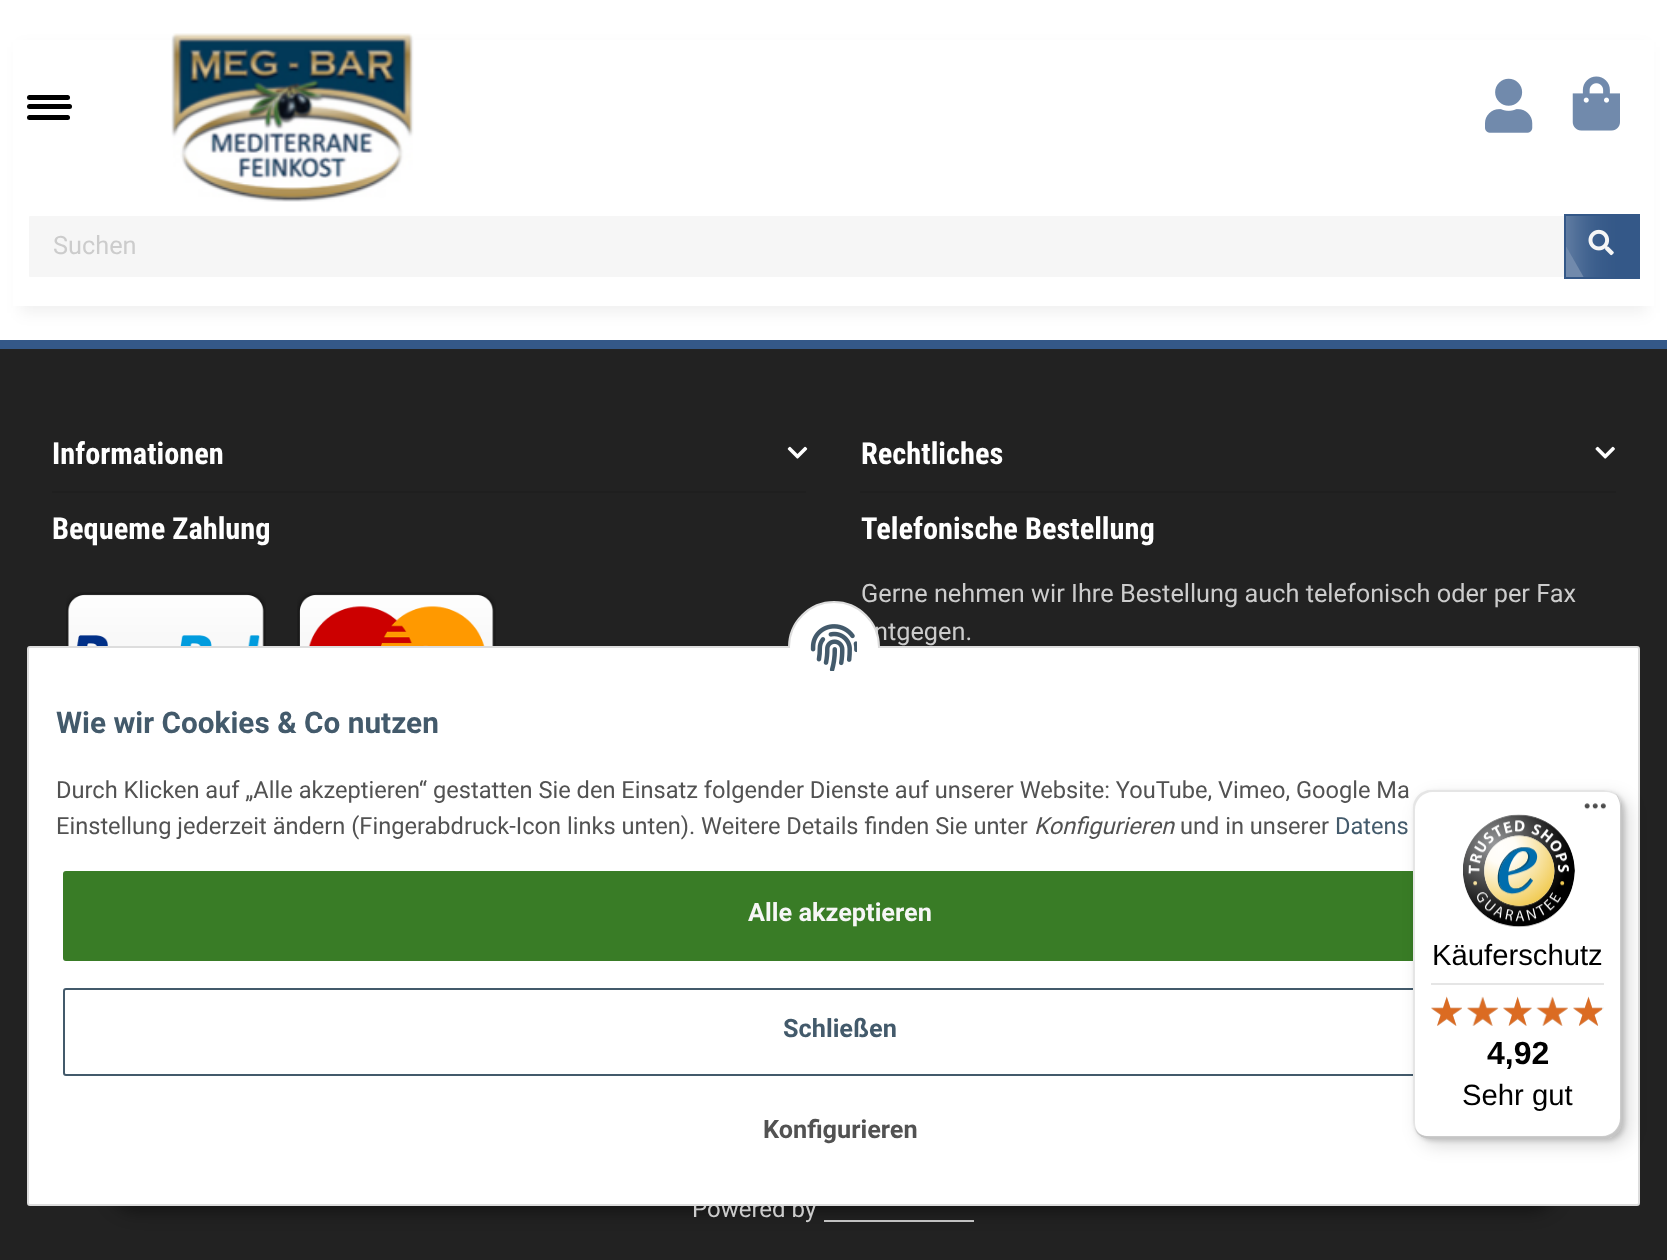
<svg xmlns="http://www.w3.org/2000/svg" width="1667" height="1260">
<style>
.a{font:25.3px Roboto;fill:#ccc}
.b{font:bold 30.4px Roboto Condensed;fill:#fff}
.c{font:24px Roboto;fill:#ccc}
.d{font:bold 29.75px Roboto;fill:#435a6b}
.e{font:23.62px Roboto;fill:#525252}
.f{font:italic 23.62px Roboto;fill:#525252}
.g{font:23.62px Roboto;fill:#435a6b}
.h{font:bold 25.3px Roboto;fill:#f6f6f6}
.i{font:bold 25.3px Roboto;fill:#435a6b}
.j{font:bold 25.3px Roboto;fill:#525252}
.k{font:29.25px Liberation Sans;fill:#000}
.l{font:bold 32px Liberation Sans;fill:#000}
</style>
<defs>
<clipPath id="clip1"><path d="M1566 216h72v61H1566z"/></clipPath>
<clipPath id="clip2"><path d="M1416 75h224v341h-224zm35 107.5l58.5-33.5l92.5 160l-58.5 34z" clip-rule="evenodd"/></clipPath>
<clipPath id="clip3"><path d="M1566 216h72v61H1566z"/></clipPath>
</defs>
<rect width="100%" height="100%" fill="#fff"/>
<path fill="#0000000f" filter="blur(7.5px)" d="M20 47h1627v266H20z"/>
<path fill="#fff" d="M13 40h1641v266H13z"/>
<rect fill="#000" x="27" y="104" width="45" height="5" rx="2.5"/>
<rect fill="#000" x="27" y="95" width="43" height="5" rx="2.5"/>
<rect fill="#000" x="27" y="115" width="43" height="5" rx="2.5"/>
<image href="1.png" x="171" y="33" width="243" height="169"/>
<image href="2.png" x="1485" y="78" width="48" height="55"/>
<image href="3.png" x="1572" y="76" width="48" height="55"/>
<rect fill="#f6f6f6" x="29" y="216" width="1535" height="61" rx="1"/>
<path fill="#345888" d="M1564 214h76v65H1564z"/>
<image href="4.png" x="1588" y="229" width="26" height="27"/>
<path fill="#222" d="M0 349h1667v911H0z"/>
<path fill="#345888" d="M0 340h1667v9H0z"/>
<g clip-path="url(#clip1)">
<g clip-path="url(#clip2)">
<path fill="#ffffff80" filter="blur(25.5px)" d="M1494 153h68v185H1494z"/>
</g>
</g>
<g clip-path="url(#clip3)">
<path fill="#ffffff4d" d="M1451 183l59-34l92 160l-58 34z"/>
</g>
<image href="5.png" x="787" y="446" width="21" height="13"/>
<path fill="#1f1f1f" d="M52 491h754v2H52z"/>
<image href="6.png" x="1595" y="446" width="20" height="13"/>
<path fill="#1f1f1f" d="M860 491h756v2H860z"/>
<image href="7.png" x="66" y="592" width="200" height="54"/>
<image href="8.png" x="297" y="592" width="199" height="54"/>
<path fill="#ccc" d="M824 1220h150v2H824z"/>
<rect fill="#00000073" filter="blur(8.5px)" x="110" y="1157" width="1447" height="54" rx="27"/>
<text class="a" x="53" y="254">Suchen</text>
<text class="b" x="52" y="464">Informationen</text>
<text class="b" x="861" y="464">Rechtliches</text>
<text class="b" x="52" y="539">Bequeme Zahlung</text>
<text class="b" x="861" y="539">Telefonische Bestellung</text>
<text class="a" x="861" y="602">Gerne nehmen wir Ihre Bestellung auch telefonisch oder per Fax</text>
<text class="a" x="874" y="640">ntgegen.</text>
<text class="c" x="692" y="1217">Powered by</text>
<rect fill="#fff" stroke="#ddd" stroke-width="2" x="28" y="647" width="1611" height="558" rx="2"/>
<circle fill="#fff" stroke="#ddd" stroke-width="2" cx="834" cy="647" r="45"/>
<path fill="#fff" d="M788 648h92v45H788z"/>
<image href="9.png" x="810" y="624" width="47" height="47"/>
<text class="d" x="56" y="733">Wie wir Cookies &amp; Co nutzen</text>
<text class="e" x="56" y="798">Durch Klicken auf „Alle akzeptieren“ gestatten Sie den Einsatz folgender Dienste auf unserer Website: YouTube, Vimeo, Google Ma</text>
<text class="e" x="56" y="834">Einstellung jederzeit ändern (Fingerabdruck-Icon links unten). Weitere Details finden Sie unter</text>
<text class="f" x="1034" y="834">Konfigurieren</text>
<text class="e" x="1180" y="834">und in unserer</text>
<text class="g" x="1335" y="834">Datens</text>
<rect fill="#397c26" stroke="#397c26" stroke-width="2" x="64" y="872" width="1553" height="88" rx="2"/>
<text class="h" x="748" y="921">Alle akzeptieren</text>
<rect fill="none" stroke="#435a6b" stroke-width="2" x="64" y="989" width="1553" height="86" rx="2"/>
<text class="i" x="783" y="1037">Schließen</text>
<text class="j" x="763" y="1138">Konfigurieren</text>
<rect fill="#00000026" filter="blur(9px)" x="1420" y="797" width="209" height="348" rx="18"/>
<rect fill="#00000026" filter="blur(2px)" x="1415" y="792" width="210" height="349" rx="18"/>
<rect fill="#fff" x="1413" y="790" width="209" height="349" rx="18"/>
<path fill="#0000001a" d="M1433 792h173c4 0 8 2 12 4c-4-4-9-6-14-6h-173c-10 0-18 8-18 18v313c0 5 2 10 6 14c-2-4-4-8-4-12v-313c0-10 8-18 18-18z"/>
<path fill="#00000033" d="M1415 1130c3 5 9 9 16 9h173c10 0 18-8 18-18v-313c0-5-2-10-6-14c2 4 4 8 4 12v312c0 10-8 18-18 18h-173c-6 0-11-2-14-6z"/>
<path fill="#32323233" d="M1415 1128c2 7 9 11 16 11h173c10 0 18-8 18-18v-313c0-3-1-6-2-9c1 2 1 5 1 7v313c0 10-8 18-18 18h-173c-7 0-12-4-15-9z"/>
<path fill="#ffffff4d" d="M1415 1128c2 7 9 11 16 11h173c10 0 18-8 18-18v-313c0-5-2-10-5-13c2 3 4 7 4 12v312c0 10-8 18-18 18h-173c-7 0-12-4-15-9z"/>
<image href="10.png" x="1584" y="803" width="22" height="7"/>
<image href="11.png" x="1463" y="814" width="112" height="114"/>
<text class="k" x="1432" y="965">Käuferschutz</text>
<path fill="#e5e5e5" d="M1431 983h173v2H1431z"/>
<image href="17.png" x="1431" y="997" width="31" height="29"/>
<image href="12.png" x="1431" y="996" width="31" height="30"/>
<image href="18.png" x="1467" y="997" width="31" height="29"/>
<image href="13.png" x="1467" y="996" width="32" height="30"/>
<image href="19.png" x="1503" y="997" width="29" height="29"/>
<image href="14.png" x="1503" y="996" width="29" height="30"/>
<image href="20.png" x="1536" y="997" width="32" height="29"/>
<image href="15.png" x="1536" y="996" width="32" height="30"/>
<image href="21.png" x="1573" y="997" width="31" height="29"/>
<image href="16.png" x="1573" y="996" width="29" height="30"/>
<text class="l" x="1487" y="1064">4,92</text>
<text class="k" x="1462" y="1105">Sehr gut</text>
</svg>
